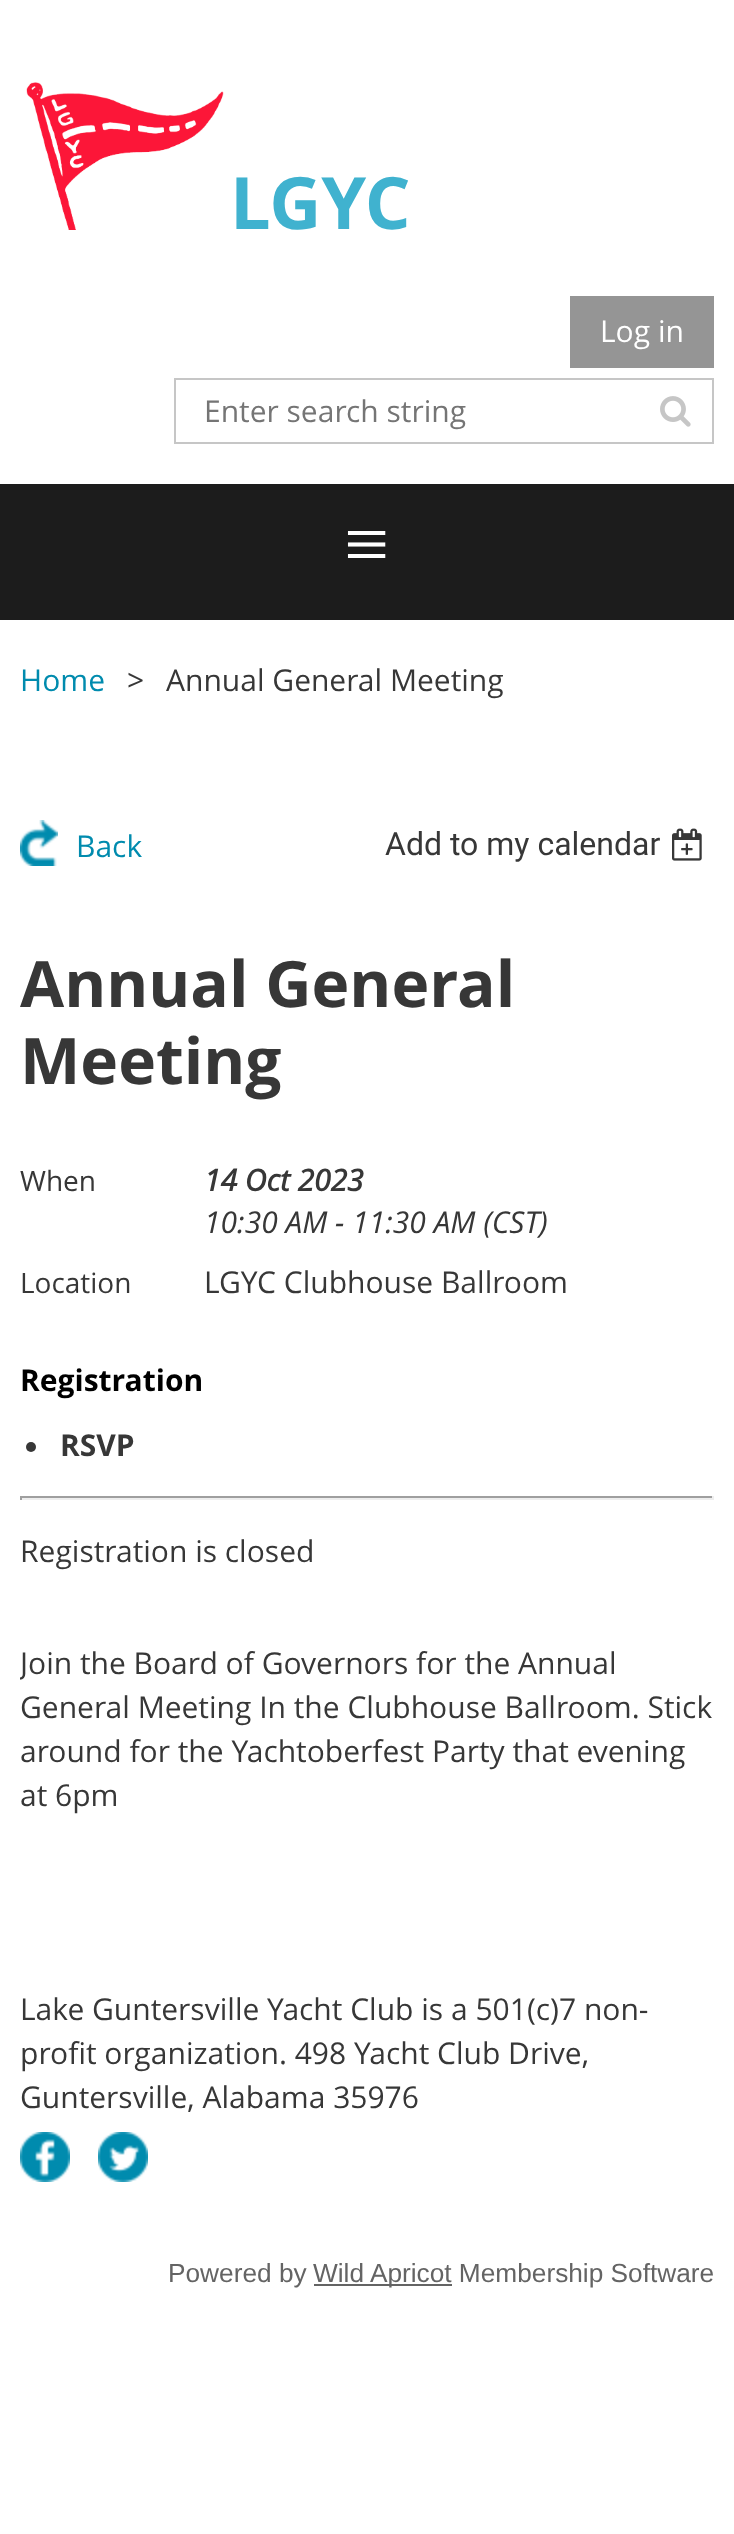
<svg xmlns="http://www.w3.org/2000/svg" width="734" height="2534">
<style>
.a{font:bold 72px Open Sans;fill:#40b2cf}
.b{font:30px Open Sans;fill:#fff}
.c{font:30px Open Sans;fill:#757575}
.d{font:80px Liberation Serif;fill:#fff}
.e{font:30px Open Sans;fill:#008bae}
.f{font:30px Open Sans;fill:#373737}
.g{font:32px Roboto;fill:#373737}
.h{font:bold 64px Open Sans;fill:#373737}
.i{font:28px Open Sans;fill:#373737}
.j{font:italic bold 30px Open Sans;fill:#373737}
.k{font:italic 30px Open Sans;fill:#373737}
.l{font:bold 30px Open Sans;fill:#000}
.m{font:bold 30px Open Sans;fill:#373737}
.n{font:26.25px Liberation Sans;fill:#646464}
</style>
<defs>
<clipPath id="clip1"><path d="M20 1640h694v206H20z"/></clipPath>
</defs>
<rect width="100%" height="100%" fill="#fff"/>
<image href="1.png" x="26" y="82" width="198" height="148"/>
<path fill="#959595" d="M570 296h144v72H570z"/>
<path fill="none" stroke="#c6c6c6" stroke-width="2" d="M175 379h538v64H175z"/>
<image href="2.png" x="660" y="396" width="31" height="31"/>
<path fill="#1c1c1c" d="M0 484h734v136H0z"/>
<image href="3.png" x="20" y="820" width="38" height="46"/>
<image href="4.png" x="672" y="828" width="30" height="33"/>
<circle fill="#373737" cx="31" cy="1447" r="5"/>
<path fill="#9f9f9f" d="M20 1496h694v2H20z"/>
<path fill="#eee" d="M712 1496h2v4H712z"/>
<path fill="#eee" d="M20 1498h694v2H20z"/>
<path fill="#9f9f9f" d="M20 1496h2v4H20z"/>
<image href="5.png" x="20" y="2132" width="50" height="50"/>
<image href="6.png" x="98" y="2132" width="50" height="50"/>
<path fill="#646464" d="M314 2284h138v2H314z"/>
<text class="a" x="230" y="229">LGYC</text>
<text class="b" x="600" y="342">Log in</text>
<text class="c" x="204" y="422">Enter search string</text>
<text class="d" x="344" y="571">≡</text>
<text class="e" x="20" y="691">Home</text>
<text class="f" x="127" y="691">&gt;</text>
<text class="f" x="166" y="691">Annual General Meeting</text>
<text class="e" x="76" y="857">Back</text>
<text class="g" x="385" y="855">Add to my calendar</text>
<text class="h" x="20" y="1007">Annual General</text>
<text class="h" x="20" y="1084">Meeting</text>
<text class="i" x="20" y="1191">When</text>
<text class="j" x="204" y="1191">14 Oct 2023</text>
<text class="k" x="204" y="1233">10:30 AM - 11:30 AM (CST)</text>
<text class="i" x="20" y="1293">Location</text>
<text class="f" x="204" y="1293">LGYC Clubhouse Ballroom</text>
<text class="l" x="20" y="1391">Registration</text>
<text class="m" x="60" y="1456">RSVP</text>
<text class="f" x="20" y="1562">Registration is closed</text>
<g clip-path="url(#clip1)">
<text class="f" x="20" y="1674">Join the Board of Governors for the Annual</text>
</g>
<text class="f" x="20" y="1718">General Meeting In the Clubhouse Ballroom. Stick</text>
<text class="f" x="20" y="1762">around for the Yachtoberfest Party that evening</text>
<text class="f" x="20" y="1806">at 6pm</text>
<text class="f" x="20" y="2020">Lake Guntersville Yacht Club is a 501(c)7 non-</text>
<text class="f" x="20" y="2064">profit organization. 498 Yacht Club Drive,</text>
<text class="f" x="20" y="2108">Guntersville, Alabama 35976</text>
<text class="n" x="168" y="2282">Powered by</text>
<text class="n" x="313" y="2282">Wild Apricot Membership Software</text>
</svg>
